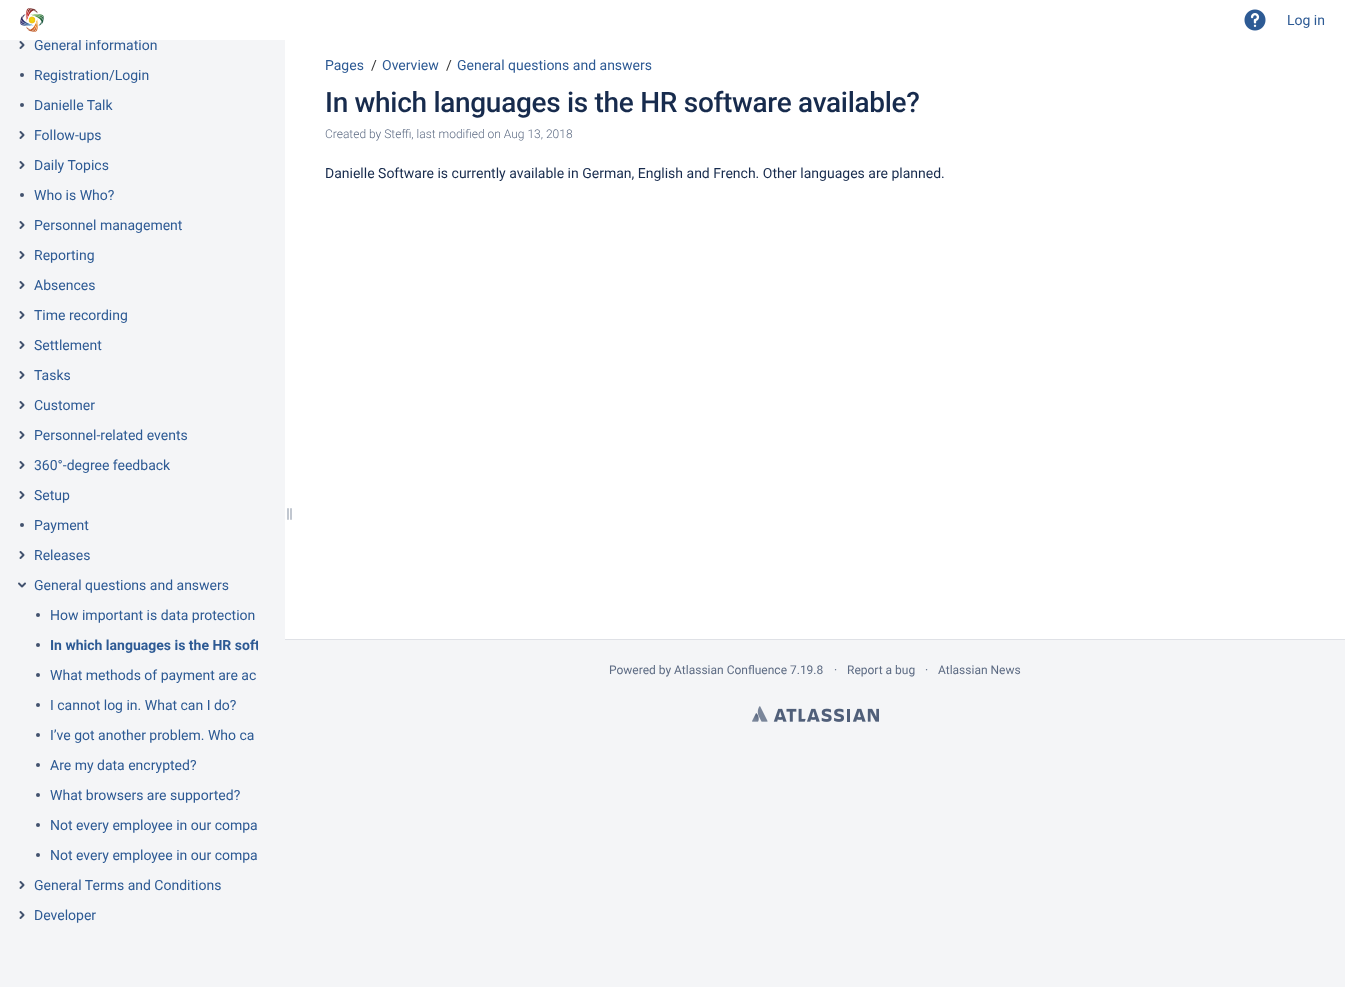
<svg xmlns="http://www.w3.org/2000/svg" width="1345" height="987">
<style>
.a{font:14px Roboto;fill:#2d5a94}
.b{font:bold 14px Roboto;fill:#2d5a94}
.c{font:14px Roboto;fill:#333}
.d{font:500 28px Roboto;letter-spacing:-0.3px;fill:#172b4d}
.e{font:300 12px Roboto;fill:#5e6c84}
.f{font:14px Roboto;fill:#172b4d}
.g{font:12px Roboto;fill:#5e6c84}
</style>
<defs>
<clipPath id="clip1"><path d="M34 40h222v15H34z"/></clipPath>
<clipPath id="clip2"><path d="M50 635h208v20H50z"/></clipPath>
</defs>
<rect width="100%" height="100%" fill="#f4f5f7"/>
<path fill="#fff" d="M0 0h1345v40H0z"/>
<image href="1.png" x="20" y="8" width="24" height="24"/>
<image href="2.png" x="1244" y="9" width="22" height="22"/>
<image href="3.png" x="19" y="41" width="6" height="8"/>
<circle fill="#42526e" cx="22" cy="75" r="2"/>
<circle fill="#42526e" cx="22" cy="105" r="2"/>
<image href="3.png" x="19" y="131" width="6" height="8"/>
<image href="3.png" x="19" y="161" width="6" height="8"/>
<circle fill="#42526e" cx="22" cy="195" r="2"/>
<image href="3.png" x="19" y="221" width="6" height="8"/>
<image href="3.png" x="19" y="251" width="6" height="8"/>
<image href="3.png" x="19" y="281" width="6" height="8"/>
<image href="3.png" x="19" y="311" width="6" height="8"/>
<image href="3.png" x="19" y="341" width="6" height="8"/>
<image href="3.png" x="19" y="371" width="6" height="8"/>
<image href="3.png" x="19" y="401" width="6" height="8"/>
<image href="3.png" x="19" y="431" width="6" height="8"/>
<image href="3.png" x="19" y="461" width="6" height="8"/>
<image href="3.png" x="19" y="491" width="6" height="8"/>
<circle fill="#42526e" cx="22" cy="525" r="2"/>
<image href="3.png" x="19" y="551" width="6" height="8"/>
<image href="4.png" x="18" y="582" width="8" height="6"/>
<circle fill="#42526e" cx="38" cy="615" r="2"/>
<circle fill="#42526e" cx="38" cy="645" r="2"/>
<circle fill="#42526e" cx="38" cy="675" r="2"/>
<circle fill="#42526e" cx="38" cy="705" r="2"/>
<circle fill="#42526e" cx="38" cy="735" r="2"/>
<circle fill="#42526e" cx="38" cy="765" r="2"/>
<circle fill="#42526e" cx="38" cy="795" r="2"/>
<circle fill="#42526e" cx="38" cy="825" r="2"/>
<circle fill="#42526e" cx="38" cy="855" r="2"/>
<image href="3.png" x="19" y="881" width="6" height="8"/>
<image href="3.png" x="19" y="911" width="6" height="8"/>
<path fill="#fff" d="M285 40h1060v599H285z"/>
<image href="5.png" x="287" y="508" width="5" height="12"/>
<path fill="#dfe1e6" d="M285 639h1060v1H285z"/>
<image href="6.png" x="752" y="706" width="127" height="16"/>
<text class="a" x="1287" y="25">Log in</text>
<g clip-path="url(#clip1)">
<text class="a" x="34" y="50">General information</text>
</g>
<text class="a" x="34" y="80">Registration/Login</text>
<text class="a" x="34" y="110">Danielle Talk</text>
<text class="a" x="34" y="140">Follow-ups</text>
<text class="a" x="34" y="170">Daily Topics</text>
<text class="a" x="34" y="200">Who is Who?</text>
<text class="a" x="34" y="230">Personnel management</text>
<text class="a" x="34" y="260">Reporting</text>
<text class="a" x="34" y="290">Absences</text>
<text class="a" x="34" y="320">Time recording</text>
<text class="a" x="34" y="350">Settlement</text>
<text class="a" x="34" y="380">Tasks</text>
<text class="a" x="34" y="410">Customer</text>
<text class="a" x="34" y="440">Personnel-related events</text>
<text class="a" x="34" y="470">360°-degree feedback</text>
<text class="a" x="34" y="500">Setup</text>
<text class="a" x="34" y="530">Payment</text>
<text class="a" x="34" y="560">Releases</text>
<text class="a" x="34" y="590">General questions and answers</text>
<text class="a" x="50" y="620">How important is data protection</text>
<g clip-path="url(#clip2)">
<text class="b" x="50" y="650">In which languages is the HR soft</text>
</g>
<text class="a" x="50" y="680">What methods of payment are ac</text>
<text class="a" x="50" y="710">I cannot log in. What can I do?</text>
<text class="a" x="50" y="740">I’ve got another problem. Who ca</text>
<text class="a" x="50" y="770">Are my data encrypted?</text>
<text class="a" x="50" y="800">What browsers are supported?</text>
<text class="a" x="50" y="830">Not every employee in our compa</text>
<text class="a" x="50" y="860">Not every employee in our compa</text>
<text class="a" x="34" y="890">General Terms and Conditions</text>
<text class="a" x="34" y="920">Developer</text>
<text class="a" x="325" y="70">Pages</text>
<text class="c" x="371" y="70">/</text>
<text class="a" x="382" y="70">Overview</text>
<text class="c" x="446" y="70">/</text>
<text class="a" x="457" y="70">General questions and answers</text>
<text class="d" x="325" y="112">In which languages is the HR software available?</text>
<text class="e" x="325" y="138">Created by Steffi, last modified on Aug 13, 2018</text>
<text class="f" x="325" y="178">Danielle Software is currently available in German, English and French. Other languages are planned.</text>
<text class="g" x="609" y="674">Powered by Atlassian Confluence 7.19.8</text>
<text class="g" x="834" y="674">·</text>
<text class="g" x="847" y="674">Report a bug</text>
<text class="g" x="925" y="674">·</text>
<text class="g" x="938" y="674">Atlassian News</text>
</svg>
